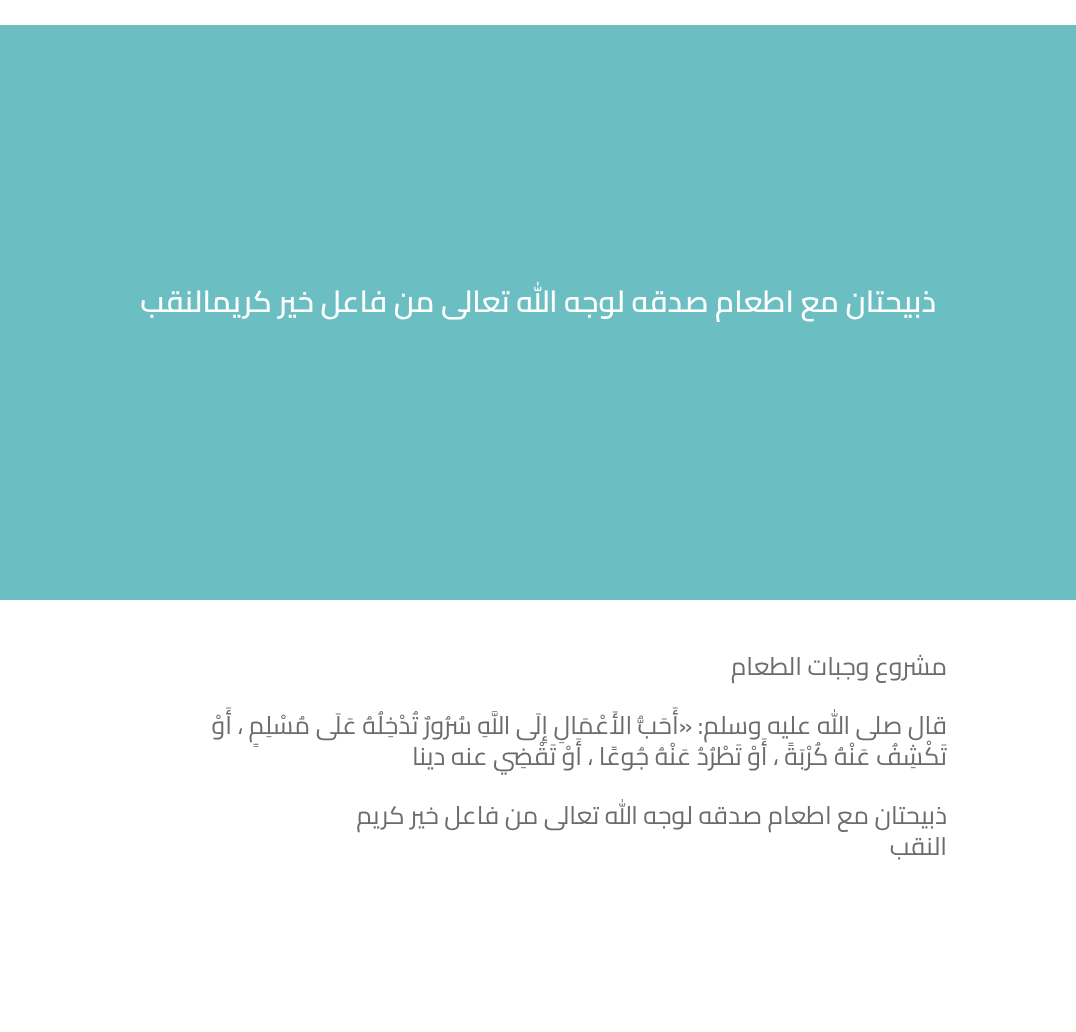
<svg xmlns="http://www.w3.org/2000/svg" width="1076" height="1032">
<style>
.a{font:600 30px Cairo;direction:rtl;fill:#fff}
.b{font:25px Cairo;direction:rtl;fill:#6a6b6c}
</style>
<rect width="100%" height="100%" fill="#fff"/>
<path fill="#6bbfc2" d="M0 25h1076v575H0z"/>
<text class="a" x="936" y="312">ذبيحتان مع اطعام صدقه لوجه الله تعالى من فاعل خير كريمالنقب</text>
<text class="b" x="947" y="675">مشروع وجبات الطعام</text>
<text class="b" x="947" y="734">قال صلى الله عليه وسلم: «أَحَبُّ الأَعْمَالِ إِلَى اللَّهِ سُرُورٌ تُدْخِلُهُ عَلَى مُسْلِمٍ ، أَوْ</text>
<text class="b" x="947" y="765">تَكْشِفُ عَنْهُ كُرْبَةً ، أَوْ تَطْرُدُ عَنْهُ جُوعًا ، أَوْ تَقْضِي عنه دينا</text>
<text class="b" x="947" y="824">ذبيحتان مع اطعام صدقه لوجه الله تعالى من فاعل خير كريم</text>
<text class="b" x="947" y="855">النقب</text>
</svg>
